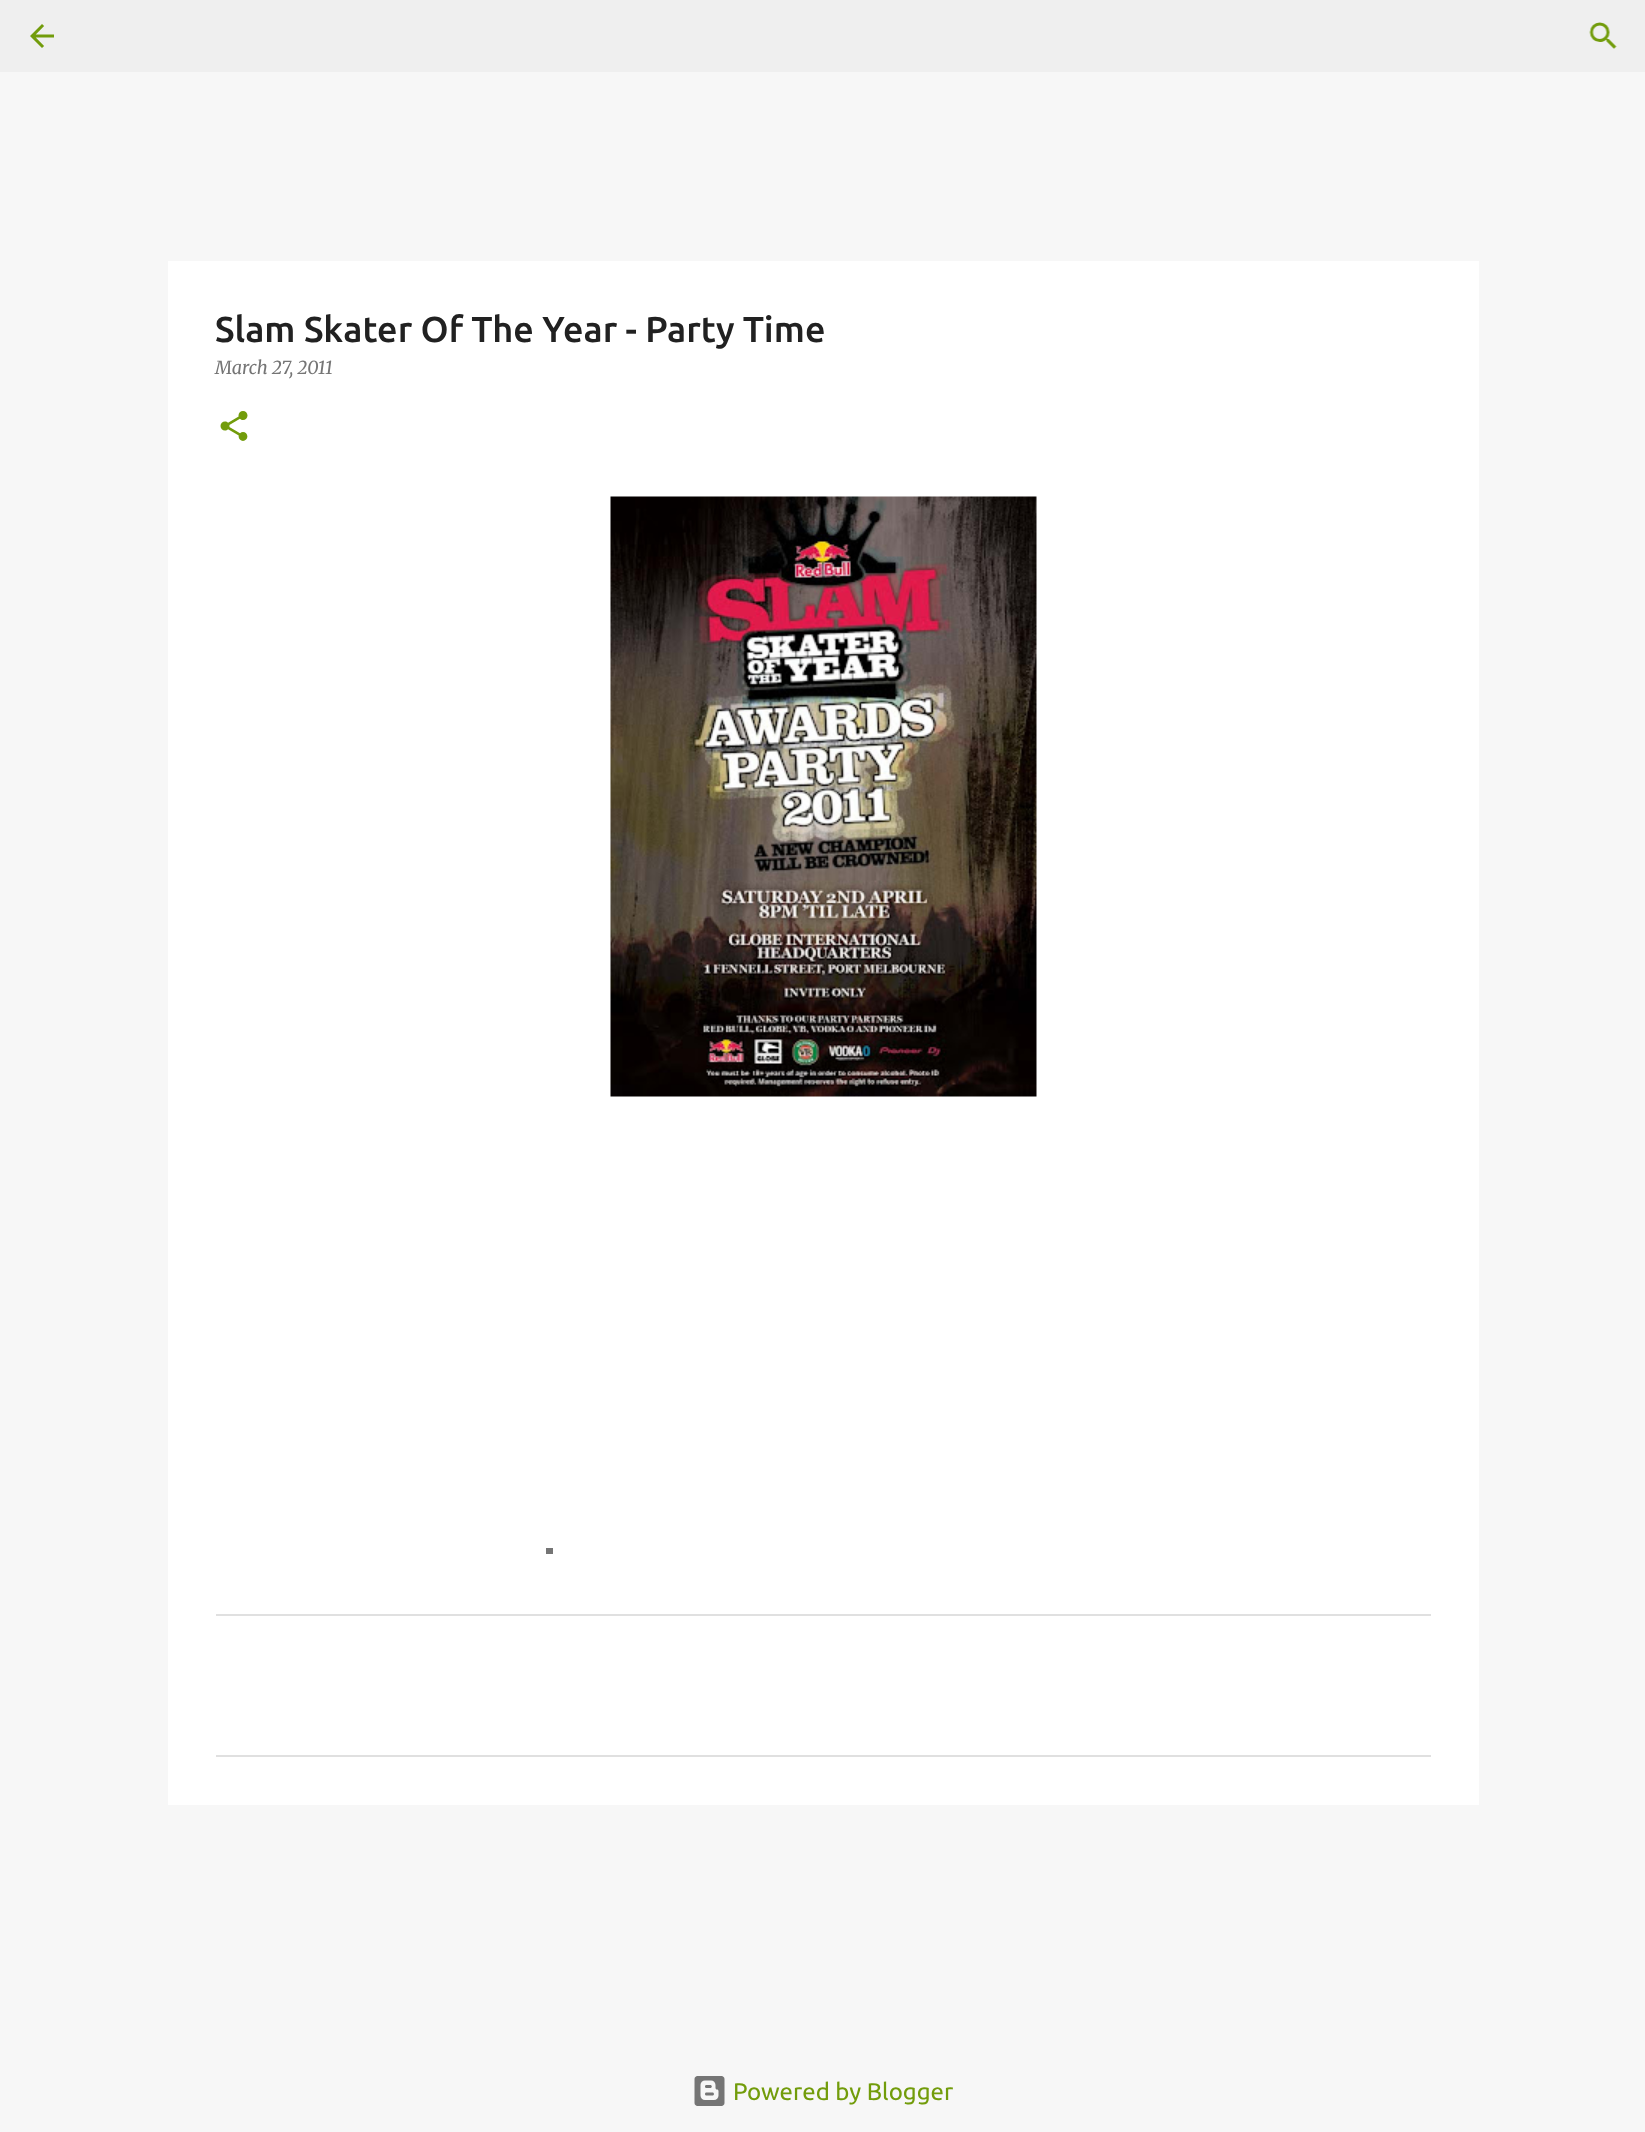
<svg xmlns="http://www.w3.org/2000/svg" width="1645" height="2132">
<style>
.a{font:500 36px Ubuntu;fill:#212121}
.b{font:italic 300 18px Merriweather;fill:#757575}
.c{font:24px Ubuntu;fill:#729c0b}
</style>
<rect width="100%" height="100%" fill="#f7f7f7"/>
<path fill="#efefef" d="M0 0h1645v72H0z"/>
<image href="1.png" x="30" y="24" width="24" height="24"/>
<image href="2.png" x="1589" y="22" width="28" height="27"/>
<path fill="#fff" d="M168 261h1311v1544H168z"/>
<path fill="#e0e0e0" d="M216 1614h1215v2H216z"/>
<path fill="#e0e0e0" d="M216 1755h1215v2H216z"/>
<image href="3.png" x="220" y="411" width="28" height="30"/>
<image href="4.png" x="610" y="496" width="427" height="601"/>
<image href="5.png" x="694" y="2076" width="31" height="30"/>
<path fill="#757575" d="M546 1548h7v6H546z"/>
<text class="a" x="215" y="342">Slam Skater Of The Year - Party Time</text>
<text class="b" x="215" y="374">March 27, 2011</text>
<text class="c" x="733" y="2100">Powered by Blogger</text>
</svg>
